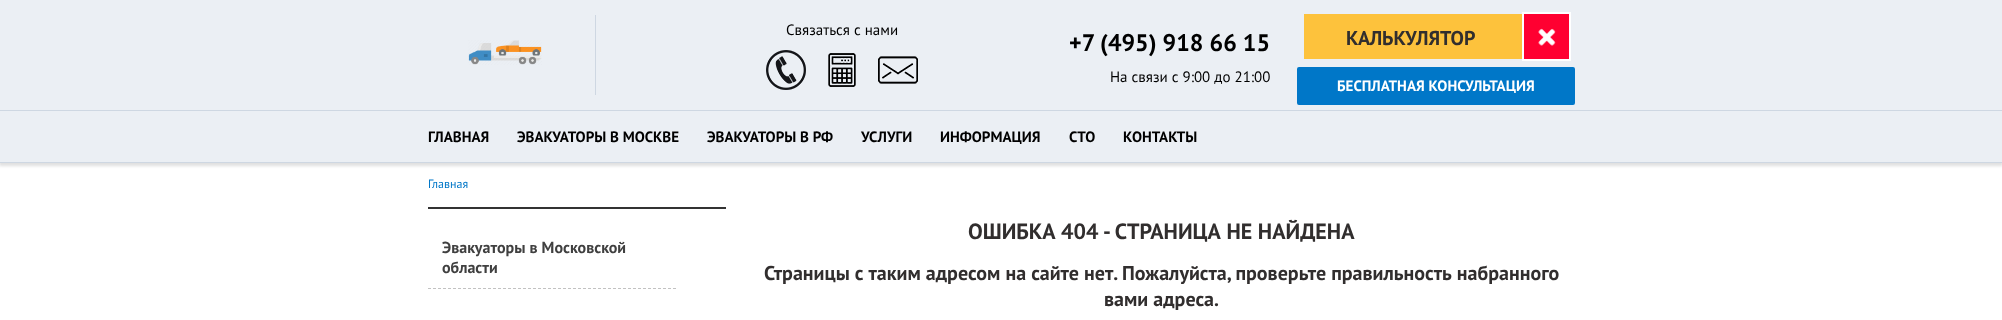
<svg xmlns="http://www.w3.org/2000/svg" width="2002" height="320">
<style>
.a{font:15px PT Sans;fill:#000}
.b{font:bold 24px PT Sans;fill:#000}
.c{font:bold 20px PT Sans;fill:#312e2e}
.d{font:bold 15px PT Sans;fill:#fff}
.e{font:bold 15px PT Sans;fill:#000}
.f{font:12px PT Sans;fill:#0077c8}
.g{font:bold 16px PT Sans;fill:#404040}
.h{font:bold 22px PT Sans;fill:#312e2e}
</style>
<rect width="100%" height="100%" fill="#fff"/>
<path fill="#0000001f" filter="blur(1.5px)" d="M-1 111h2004v55H-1z"/>
<path fill="#ebeff4" d="M0 0h2002v110H0z"/>
<image href="1.png" x="468" y="40" width="74" height="25"/>
<path fill="#ced7e2" d="M595 15h1v80H595z"/>
<image href="2.png" x="766" y="50" width="40" height="40"/>
<image href="3.png" x="828" y="53" width="28" height="34"/>
<image href="4.png" x="878" y="56" width="40" height="28"/>
<path fill="#fdc23c" d="M1304 14h218v45H1304z"/>
<path fill="none" stroke="#fff" stroke-width="2" d="M1523 13h47v47H1523z"/>
<image href="5.png" x="1524" y="14" width="45" height="45"/>
<rect fill="#0077c8" stroke="#0077c8" stroke-width="2" x="1298" y="68" width="276" height="36" rx="1"/>
<path fill="#ebeff4" d="M0 111h2002v51H0z"/>
<path fill="#ced7e2" d="M0 110h2002v1H0z"/>
<path fill="#ced7e2" d="M0 162h2002v1H0z"/>
<path fill="#333" d="M428 207h298v2H428z"/>
<path fill="none" stroke="#c2c2c2" stroke-dasharray="3 2" d="M428 288.5h248"/>
<text class="a" x="786" y="35">Связаться с нами</text>
<text class="b" x="1069" y="51">+7 (495) 918 66 15</text>
<text class="a" x="1110" y="82">На связи с 9:00 до 21:00</text>
<text class="c" x="1346" y="45">КАЛЬКУЛЯТОР</text>
<text class="d" x="1337" y="91">БЕСПЛАТНАЯ КОНСУЛЬТАЦИЯ</text>
<text class="e" x="428" y="142">ГЛАВНАЯ</text>
<text class="e" x="517" y="142">ЭВАКУАТОРЫ В МОСКВЕ</text>
<text class="e" x="707" y="142">ЭВАКУАТОРЫ В РФ</text>
<text class="e" x="861" y="142">УСЛУГИ</text>
<text class="e" x="940" y="142">ИНФОРМАЦИЯ</text>
<text class="e" x="1069" y="142">СТО</text>
<text class="e" x="1123" y="142">КОНТАКТЫ</text>
<text class="f" x="428" y="188">Главная</text>
<text class="g" x="442" y="253">Эвакуаторы в Московской</text>
<text class="g" x="442" y="273">области</text>
<text class="h" x="968" y="239">ОШИБКА 404 - СТРАНИЦА НЕ НАЙДЕНА</text>
<text class="c" x="764" y="280">Страницы с таким адресом на сайте нет. Пожалуйста, проверьте правильность набранного</text>
<text class="c" x="1104" y="306">вами адреса.</text>
</svg>
